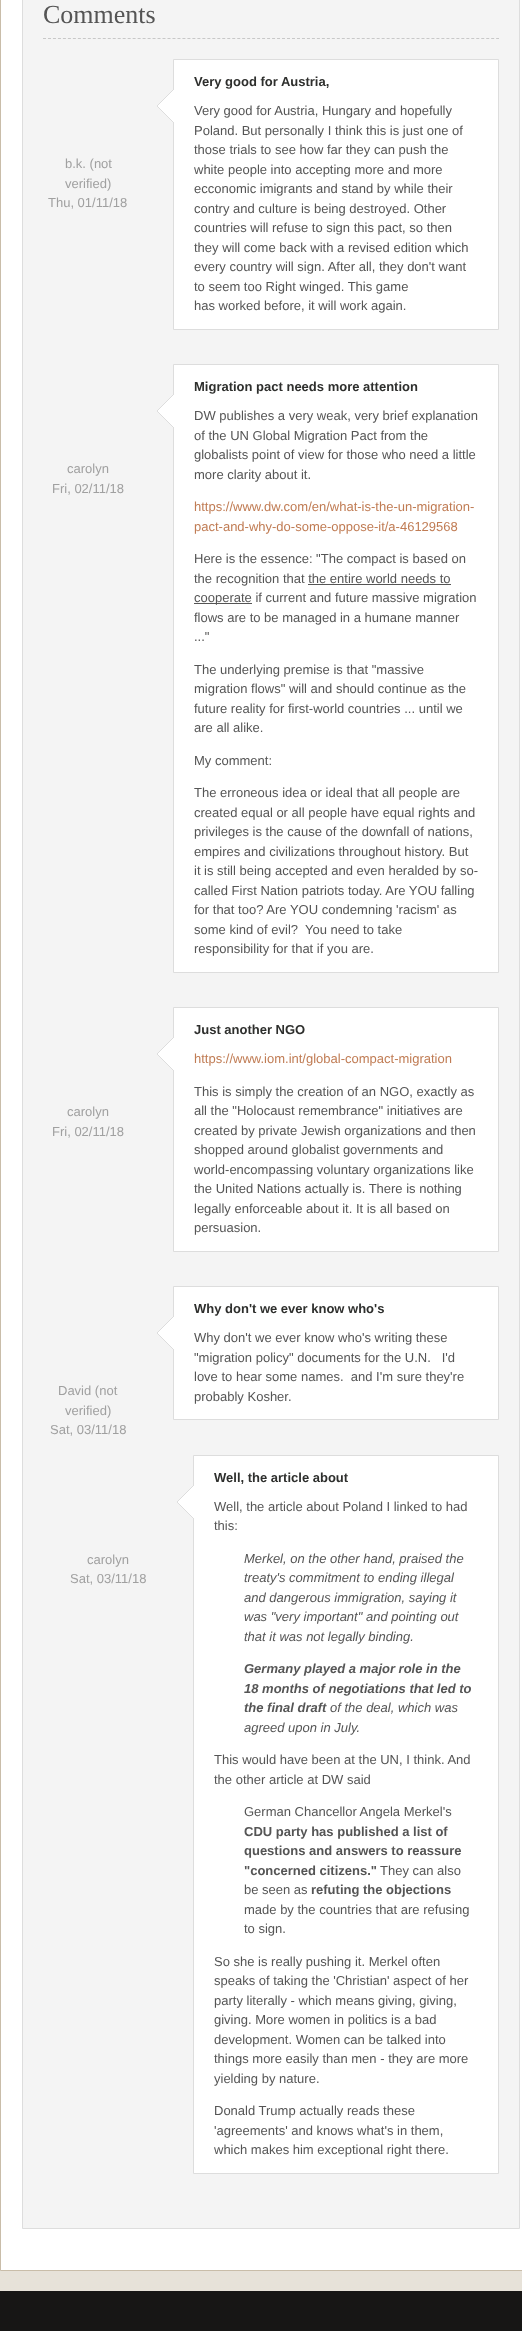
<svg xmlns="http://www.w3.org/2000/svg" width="522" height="2331">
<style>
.a{font:26px Liberation Serif;fill:#555}
.b{font:13px Liberation Sans;fill:#a0a0a0}
.c{font:bold 13px Liberation Sans;fill:#2e2f2d}
.d{font:13px Liberation Sans;fill:#555}
.e{font:13px Liberation Sans;fill:#c07c54}
.f{font:italic 13px Liberation Sans;fill:#555}
.g{font:italic bold 13px Liberation Sans;fill:#555}
.h{font:bold 13px Liberation Sans;fill:#555}
</style>
<rect width="100%" height="100%" fill="#e7e2d9"/>
<path fill="none" stroke="#c9bda9" d="M0.5 -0.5h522v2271H0.5z"/>
<path fill="#fff" d="M1 0h521v2270H1z"/>
<path fill="#f4f4f4" stroke="#ddd" d="M22.5 -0.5h497v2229H22.5z"/>
<path fill="none" stroke="#c8c8c8" stroke-dasharray="3 1.98" d="M43 38.5h456"/>
<path fill="#fff" stroke="#ddd" d="M173.5 59.5h325v270H173.5z"/>
<image href="1.png" x="157" y="90" width="17" height="32"/>
<path fill="#fff" stroke="#ddd" d="M173.5 364.5h325v608H173.5z"/>
<image href="1.png" x="157" y="395" width="17" height="32"/>
<path fill="#555" d="M308 584h143v1H308z"/>
<path fill="#555" d="M194 603h58v1H194z"/>
<path fill="#fff" stroke="#ddd" d="M173.5 1007.5h325v244H173.5z"/>
<image href="1.png" x="157" y="1038" width="17" height="32"/>
<path fill="#fff" stroke="#ddd" d="M173.5 1286.5h325v133H173.5z"/>
<image href="1.png" x="157" y="1317" width="17" height="32"/>
<path fill="#fff" stroke="#ddd" d="M193.5 1455.5h305v718H193.5z"/>
<image href="1.png" x="177" y="1486" width="17" height="32"/>
<path fill="#171615" d="M0 2291h522v40H0z"/>
<text class="a" x="43" y="23">Comments</text>
<text class="b" x="65" y="168">b.k. (not</text>
<text class="b" x="65" y="188">verified)</text>
<text class="b" x="48" y="207">Thu, 01/11/18</text>
<text class="c" x="194" y="86">Very good for Austria,</text>
<text class="d" x="194" y="115">Very good for Austria, Hungary and hopefully</text>
<text class="d" x="194" y="135">Poland. But personally I think this is just one of</text>
<text class="d" x="194" y="154">those trials to see how far they can push the</text>
<text class="d" x="194" y="174">white people into accepting more and more</text>
<text class="d" x="194" y="193">ecconomic imigrants and stand by while their</text>
<text class="d" x="194" y="213">contry and culture is being destroyed. Other</text>
<text class="d" x="194" y="232">countries will refuse to sign this pact, so then</text>
<text class="d" x="194" y="252">they will come back with a revised edition which</text>
<text class="d" x="194" y="271">every country will sign. After all, they don't want</text>
<text class="d" x="194" y="291">to seem too Right winged. This game</text>
<text class="d" x="194" y="310">has worked before, it will work again.</text>
<text class="b" x="67" y="473">carolyn</text>
<text class="b" x="52" y="493">Fri, 02/11/18</text>
<text class="c" x="194" y="391">Migration pact needs more attention</text>
<text class="d" x="194" y="420">DW publishes a very weak, very brief explanation</text>
<text class="d" x="194" y="440">of the UN Global Migration Pact from the</text>
<text class="d" x="194" y="459">globalists point of view for those who need a little</text>
<text class="d" x="194" y="479">more clarity about it.</text>
<text class="e" x="194" y="511">https://www.dw.com/en/what-is-the-un-migration-</text>
<text class="e" x="194" y="531">pact-and-why-do-some-oppose-it/a-46129568</text>
<text class="d" x="194" y="563">Here is the essence: "The compact is based on</text>
<text class="d" x="194" y="583">the recognition that the entire world needs to</text>
<text class="d" x="194" y="602">cooperate if current and future massive migration</text>
<text class="d" x="194" y="622">flows are to be managed in a humane manner</text>
<text class="d" x="194" y="641">..."</text>
<text class="d" x="194" y="674">The underlying premise is that "massive</text>
<text class="d" x="194" y="693">migration flows" will and should continue as the</text>
<text class="d" x="194" y="713">future reality for first-world countries ... until we</text>
<text class="d" x="194" y="732">are all alike.</text>
<text class="d" x="194" y="765">My comment:</text>
<text class="d" x="194" y="797">The erroneous idea or ideal that all people are</text>
<text class="d" x="194" y="817">created equal or all people have equal rights and</text>
<text class="d" x="194" y="836">privileges is the cause of the downfall of nations,</text>
<text class="d" x="194" y="856">empires and civilizations throughout history. But</text>
<text class="d" x="194" y="875">it is still being accepted and even heralded by so-</text>
<text class="d" x="194" y="895">called First Nation patriots today. Are YOU falling</text>
<text class="d" x="194" y="914">for that too? Are YOU condemning 'racism' as</text>
<text class="d" xml:space="preserve" x="194" y="934">some kind of evil?  You need to take</text>
<text class="d" x="194" y="953">responsibility for that if you are.</text>
<text class="b" x="67" y="1116">carolyn</text>
<text class="b" x="52" y="1136">Fri, 02/11/18</text>
<text class="c" x="194" y="1034">Just another NGO</text>
<text class="e" x="194" y="1063">https://www.iom.int/global-compact-migration</text>
<text class="d" x="194" y="1096">This is simply the creation of an NGO, exactly as</text>
<text class="d" x="194" y="1115">all the "Holocaust remembrance" initiatives are</text>
<text class="d" x="194" y="1135">created by private Jewish organizations and then</text>
<text class="d" x="194" y="1154">shopped around globalist governments and</text>
<text class="d" x="194" y="1174">world-encompassing voluntary organizations like</text>
<text class="d" x="194" y="1193">the United Nations actually is. There is nothing</text>
<text class="d" x="194" y="1213">legally enforceable about it. It is all based on</text>
<text class="d" x="194" y="1232">persuasion.</text>
<text class="c" x="194" y="1313">Why don't we ever know who's</text>
<text class="d" x="194" y="1342">Why don't we ever know who's writing these</text>
<text class="d" xml:space="preserve" x="194" y="1362">"migration policy" documents for the U.N.   I'd</text>
<text class="d" xml:space="preserve" x="194" y="1381">love to hear some names.  and I'm sure they're</text>
<text class="d" x="194" y="1401">probably Kosher.</text>
<text class="b" x="58" y="1395">David (not</text>
<text class="b" x="65" y="1415">verified)</text>
<text class="b" x="50" y="1434">Sat, 03/11/18</text>
<text class="b" x="87" y="1564">carolyn</text>
<text class="b" x="70" y="1583">Sat, 03/11/18</text>
<text class="c" x="214" y="1482">Well, the article about</text>
<text class="d" x="214" y="1511">Well, the article about Poland I linked to had</text>
<text class="d" x="214" y="1530">this:</text>
<text class="f" x="244" y="1563">Merkel, on the other hand, praised the</text>
<text class="f" x="244" y="1582">treaty's commitment to ending illegal</text>
<text class="f" x="244" y="1602">and dangerous immigration, saying it</text>
<text class="f" x="244" y="1621">was "very important" and pointing out</text>
<text class="f" x="244" y="1641">that it was not legally binding.</text>
<text class="g" x="244" y="1673">Germany played a major role in the</text>
<text class="g" x="244" y="1693">18 months of negotiations that led to</text>
<text class="g" x="244" y="1712">the final draft</text>
<text class="f" x="330" y="1712">of the deal, which was</text>
<text class="f" x="244" y="1732">agreed upon in July.</text>
<text class="d" x="214" y="1764">This would have been at the UN, I think. And</text>
<text class="d" x="214" y="1784">the other article at DW said</text>
<text class="d" x="244" y="1816">German Chancellor Angela Merkel's</text>
<text class="h" x="244" y="1836">CDU party has published a list of</text>
<text class="h" x="244" y="1855">questions and answers to reassure</text>
<text class="h" x="244" y="1875">"concerned citizens."</text>
<text class="d" x="380" y="1875">They can also</text>
<text class="d" x="244" y="1894">be seen as</text>
<text class="h" x="311" y="1894">refuting the objections</text>
<text class="d" x="244" y="1914">made by the countries that are refusing</text>
<text class="d" x="244" y="1933">to sign.</text>
<text class="d" x="214" y="1966">So she is really pushing it. Merkel often</text>
<text class="d" x="214" y="1985">speaks of taking the 'Christian' aspect of her</text>
<text class="d" x="214" y="2005">party literally - which means giving, giving,</text>
<text class="d" x="214" y="2024">giving. More women in politics is a bad</text>
<text class="d" x="214" y="2044">development. Women can be talked into</text>
<text class="d" x="214" y="2063">things more easily than men - they are more</text>
<text class="d" x="214" y="2083">yielding by nature.</text>
<text class="d" x="214" y="2115">Donald Trump actually reads these</text>
<text class="d" x="214" y="2135">'agreements' and knows what's in them,</text>
<text class="d" x="214" y="2154">which makes him exceptional right there.</text>
</svg>
